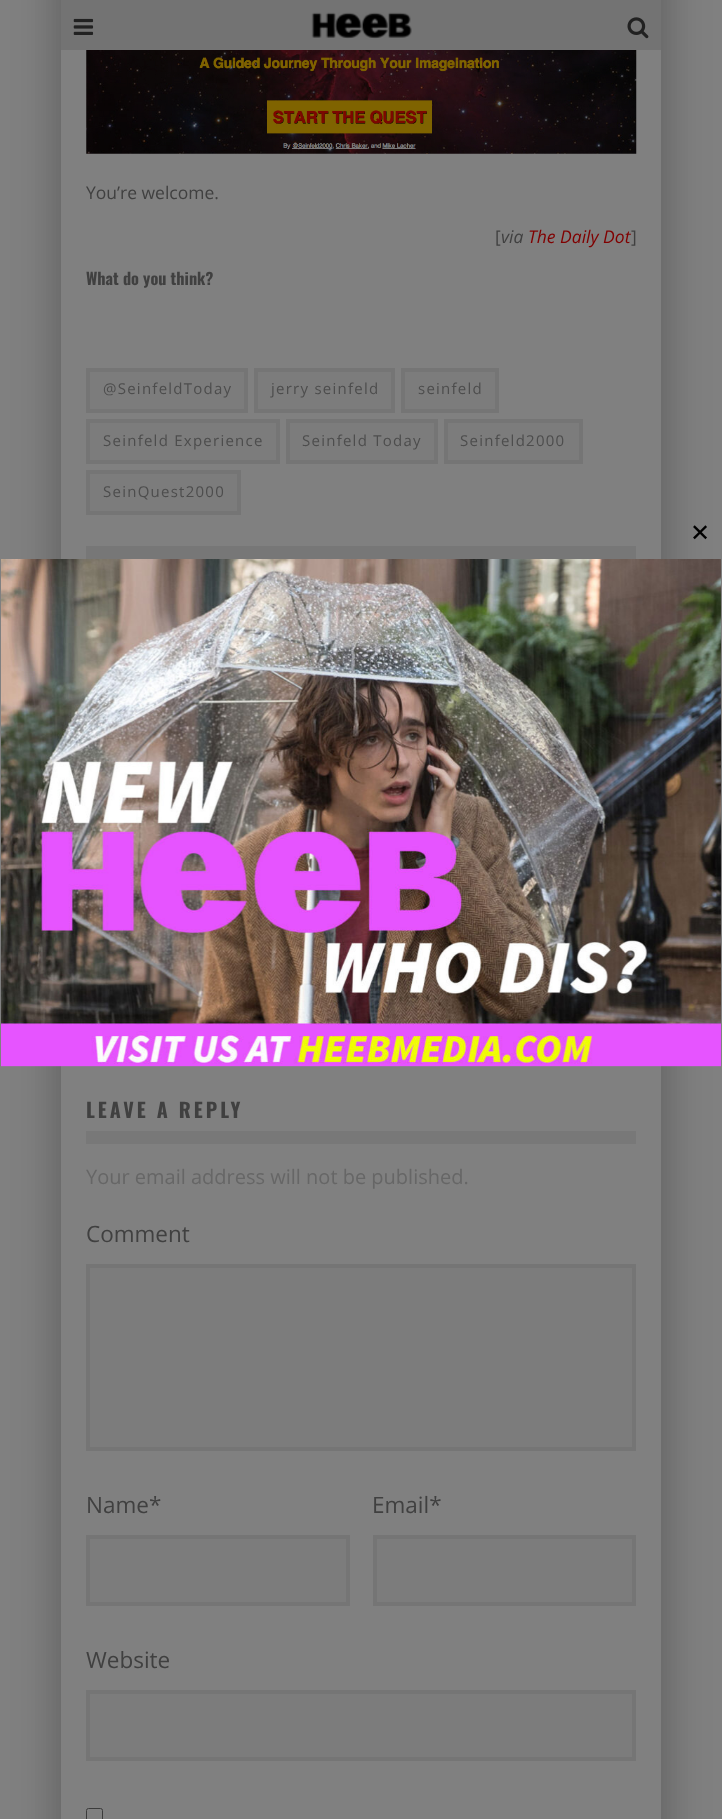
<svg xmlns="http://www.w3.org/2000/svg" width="722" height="1819">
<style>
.a{font:17.5px Open Sans;fill:#404040}
.b{font:italic 17.5px Open Sans;fill:#404040}
.c{font:italic 17.5px Open Sans;fill:#800000}
.d{font:bold 16.25px Oswald;fill:#404040}
.e{font:15px Open Sans;letter-spacing:1.25px;fill:#4d4d4d}
.f{font:bold 20px Oswald;letter-spacing:3px;fill:#404040}
.g{font:20px Open Sans;fill:#666}
.h{font:22.5px Open Sans;fill:#404040}
.i{font:24px DejaVu Sans;fill:#000}
</style>
<rect width="100%" height="100%" fill="#808080"/>
<path fill="#00000026" filter="blur(19px)" d="M49 -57h600v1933H49z"/>
<path fill="#00000026" filter="blur(19px)" d="M74 -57h600v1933H74z"/>
<path fill="#737373" d="M61 0h600v50H61z"/>
<image href="1.png" x="73" y="18" width="21" height="17"/>
<image href="2.png" x="311" y="12" width="101" height="27"/>
<image href="3.png" x="627" y="17" width="22" height="22"/>
<path fill="#808080" d="M61 50h600v1769H61z"/>
<image href="4.png" x="86" y="50" width="551" height="104"/>
<path fill="#7c7c7c" stroke="#757575" stroke-width="4" d="M88 370h158v41H88z"/>
<path fill="#7c7c7c" stroke="#757575" stroke-width="4" d="M256 370h137v41H256z"/>
<path fill="#7c7c7c" stroke="#757575" stroke-width="4" d="M403 370h94v41H403z"/>
<path fill="#7c7c7c" stroke="#757575" stroke-width="4" d="M88 421h190v41H88z"/>
<path fill="#7c7c7c" stroke="#757575" stroke-width="4" d="M288 421h148v41H288z"/>
<path fill="#7c7c7c" stroke="#757575" stroke-width="4" d="M446 421h135v41H446z"/>
<path fill="#7c7c7c" stroke="#757575" stroke-width="4" d="M88 472h151v41H88z"/>
<path fill="#777" d="M86 546h550v13H86z"/>
<path fill="#787878" d="M86 1131h550v13H86z"/>
<path fill="#7c7c7c" stroke="#757575" stroke-width="4" d="M88 1266h546v183H88z"/>
<path fill="#7c7c7c" stroke="#757575" stroke-width="4" d="M88 1537h260v67H88z"/>
<path fill="#7c7c7c" stroke="#757575" stroke-width="4" d="M375 1537h259v67H375z"/>
<path fill="#7c7c7c" stroke="#757575" stroke-width="4" d="M88 1692h546v67H88z"/>
<rect fill="none" stroke="#3b3b3b" x="86.5" y="1808.5" width="16" height="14" rx="2"/>
<image href="5.png" x="1" y="559" width="720" height="508"/>
<text class="a" x="86" y="199">You’re welcome.</text>
<text class="a" x="495" y="243">[</text>
<text class="b" x="501" y="243">via</text>
<text class="c" x="528" y="243">The Daily Dot</text>
<text class="a" x="631" y="243">]</text>
<text class="d" x="86" y="285">What do you think?</text>
<text class="e" x="103" y="394">@SeinfeldToday</text>
<text class="e" x="271" y="394">jerry seinfeld</text>
<text class="e" x="418" y="394">seinfeld</text>
<text class="e" x="103" y="446">Seinfeld Experience</text>
<text class="e" x="302" y="446">Seinfeld Today</text>
<text class="e" x="460" y="446">Seinfeld2000</text>
<text class="e" x="103" y="497">SeinQuest2000</text>
<text class="f" x="86" y="1118">LEAVE A REPLY</text>
<text class="g" x="86" y="1184">Your email address will not be published.</text>
<text class="h" x="86" y="1242">Comment</text>
<text class="h" x="86" y="1513">Name*</text>
<text class="h" x="372" y="1513">Email*</text>
<text class="h" x="86" y="1668">Website</text>
<text class="i" x="690" y="541">✕</text>
</svg>
